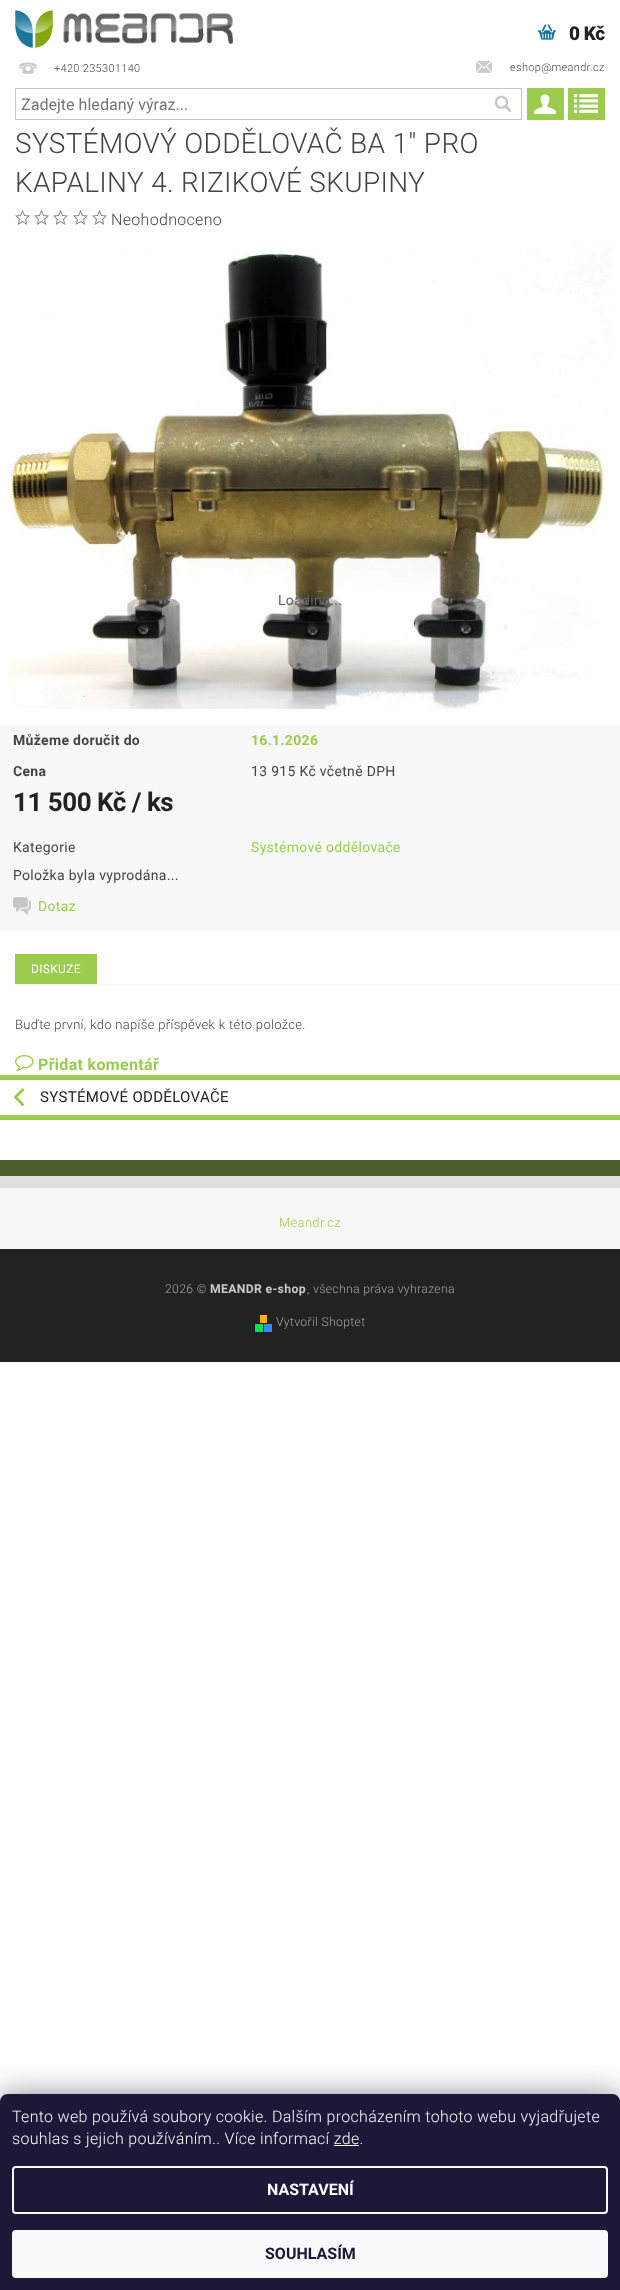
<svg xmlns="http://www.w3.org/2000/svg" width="620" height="2290">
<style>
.a{font:900 19px Roboto;letter-spacing:-0.5px;fill:#222}
.b{font:300 11px Roboto;letter-spacing:0.32px;fill:#444}
.c{font:16.1px Roboto;fill:#757575}
.d{font:300 28px Roboto;letter-spacing:0.32px;fill:#444}
.e{font:300 16px Roboto;letter-spacing:0.32px;fill:#444}
.f{font:14px Roboto;letter-spacing:0.32px;fill:#64625f}
.g{font:bold 14px Roboto;letter-spacing:0.32px;fill:#444}
.h{font:bold 14px Roboto;letter-spacing:0.32px;fill:#9ccc4e}
.i{font:14px Roboto;letter-spacing:0.32px;fill:#444}
.j{font:bold 26px Roboto;letter-spacing:-0.5px;fill:#222}
.k{font:14px Roboto;letter-spacing:0.32px;fill:#9ccc4e}
.l{font:12px Roboto;letter-spacing:0.32px;fill:#fff}
.m{font:300 13px Roboto;letter-spacing:0.32px;fill:#444}
.n{font:bold 16px Roboto;letter-spacing:0.32px;fill:#9ccc4e}
.o{font:15px Roboto;letter-spacing:0.32px;fill:#222}
.p{font:300 13px Roboto;letter-spacing:0.32px;fill:#9ccc4e}
.q{font:300 12.25px Roboto;letter-spacing:0.32px;fill:#a6a6a6}
.r{font:bold 12.25px Roboto;letter-spacing:0.32px;fill:#c9c9c9}
.s{font:300 16px Roboto;letter-spacing:0.32px;fill:#f8fafb}
.t{font:bold 16px Roboto;fill:#f8fafb}
.u{font:bold 16px Roboto;fill:#1a1937}
</style>
<rect width="100%" height="100%" fill="#fff"/>
<path fill="#4b5e2c" d="M0 1160h620v16H0z"/>
<image href="1.png" x="15" y="10" width="218" height="38"/>
<image href="2.png" x="538" y="24" width="18" height="16"/>
<path fill="#9ccc4e" d="M527 88h37v32H527z"/>
<image href="3.png" x="534" y="94" width="22" height="21"/>
<image href="4.png" x="19" y="62" width="18" height="12"/>
<image href="5.png" x="476" y="60" width="16" height="13"/>
<path fill="none" stroke="#c6c6c6" d="M15.5 88.5h506v31H15.5z"/>
<image href="6.png" x="495" y="95" width="16" height="17"/>
<path fill="#9ccc4e" d="M568 88h37v32H568z"/>
<image href="7.png" x="574" y="94" width="24" height="19"/>
<image href="8.png" x="15" y="210" width="15" height="15"/>
<image href="8.png" x="34" y="210" width="15" height="15"/>
<image href="8.png" x="53" y="210" width="15" height="15"/>
<image href="8.png" x="73" y="210" width="15" height="15"/>
<image href="8.png" x="92" y="210" width="15" height="15"/>
<image href="9.png" x="0" y="244" width="612" height="465"/>
<path fill="#f8f8f8" d="M0 725h620v206H0z"/>
<image href="10.png" x="13" y="897" width="18" height="19"/>
<path fill="#f2f2f2" d="M15 984h605v1H15z"/>
<path fill="#9ccc4e" d="M15 954h82v30H15z"/>
<image href="11.png" x="15" y="1055" width="19" height="16"/>
<path fill="#9ccc4e" d="M0 1075h620v5H0z"/>
<path fill="#9ccc4e" d="M0 1115h620v5H0z"/>
<path fill="#9ccc4e" d="M22.5 1088l-9 9l9 9.5l2-2l-7-7.5l7-7z"/>
<path fill="#f8f8f8" d="M0 1188h620v61H0z"/>
<path fill="#e0e0e0" d="M0 1176h620v12H0z"/>
<path fill="#222" d="M0 1249h620v113H0z"/>
<path fill="#fcaf00" d="M260 1315h7v8H260z"/>
<path fill="#00e25a" d="M255 1324h8v8H255z"/>
<path fill="#3b88ff" d="M264 1324h8v8H264z"/>
<rect fill="#1b193980" filter="blur(15px)" y="2094" width="620" height="196" rx="8"/>
<path fill="#1a1937" d="M8 2094h604c4.5 0 8 3.5 8 8v188h-620v-188c0-4.5 3.5-8 8-8z"/>
<path fill="#f8fafb" d="M334 2145h25v1H334z"/>
<rect fill="none" stroke="#f8fafb" stroke-width="2" x="13" y="2167" width="594" height="46" rx="3"/>
<rect fill="#f8fafb" x="12" y="2230" width="596" height="48" rx="4"/>
<text class="a" x="569" y="40">0 Kč</text>
<text class="b" x="54" y="72">+420 235301140</text>
<text class="b" x="510" y="71">eshop@meandr.cz</text>
<text class="c" x="21" y="110">Zadejte hledaný výraz...</text>
<text class="d" x="15" y="153">SYSTÉMOVÝ ODDĚLOVAČ BA 1" PRO</text>
<text class="d" x="15" y="192">KAPALINY 4. RIZIKOVÉ SKUPINY</text>
<text class="e" x="111" y="225">Neohodnoceno</text>
<text class="f" x="278" y="605">Loading...</text>
<text class="g" x="13" y="745">Můžeme doručit do</text>
<text class="h" x="251" y="745">16.1.2026</text>
<text class="g" x="13" y="776">Cena</text>
<text class="i" x="251" y="776">13 915 Kč včetně DPH</text>
<text class="j" x="13" y="811">11 500 Kč / ks</text>
<text class="i" x="13" y="852">Kategorie</text>
<text class="k" x="251" y="852">Systémové oddělovače</text>
<text class="i" x="13" y="880">Položka byla vyprodána...</text>
<text class="k" x="38" y="911">Dotaz</text>
<text class="l" x="31" y="973">DISKUZE</text>
<text class="m" x="15" y="1029">Buďte první, kdo napíše příspěvek k této položce.</text>
<text class="n" x="38" y="1070">Přidat komentář</text>
<text class="o" x="40" y="1102">SYSTÉMOVÉ ODDĚLOVAČE</text>
<text class="p" x="279" y="1227">Meandr.cz</text>
<text class="q" x="165" y="1293">2026 ©</text>
<text class="r" x="210" y="1293">MEANDR e-shop</text>
<text class="q" x="307" y="1293">, všechna práva vyhrazena</text>
<text class="q" x="276" y="1326">Vytvořil Shoptet</text>
<text class="s" x="12" y="2122">Tento web používá soubory cookie. Dalším procházením tohoto webu vyjadřujete</text>
<text class="s" x="12" y="2144">souhlas s jejich používáním.. Více informací zde.</text>
<text class="t" x="267" y="2195">NASTAVENÍ</text>
<text class="u" x="265" y="2259">SOUHLASÍM</text>
</svg>
